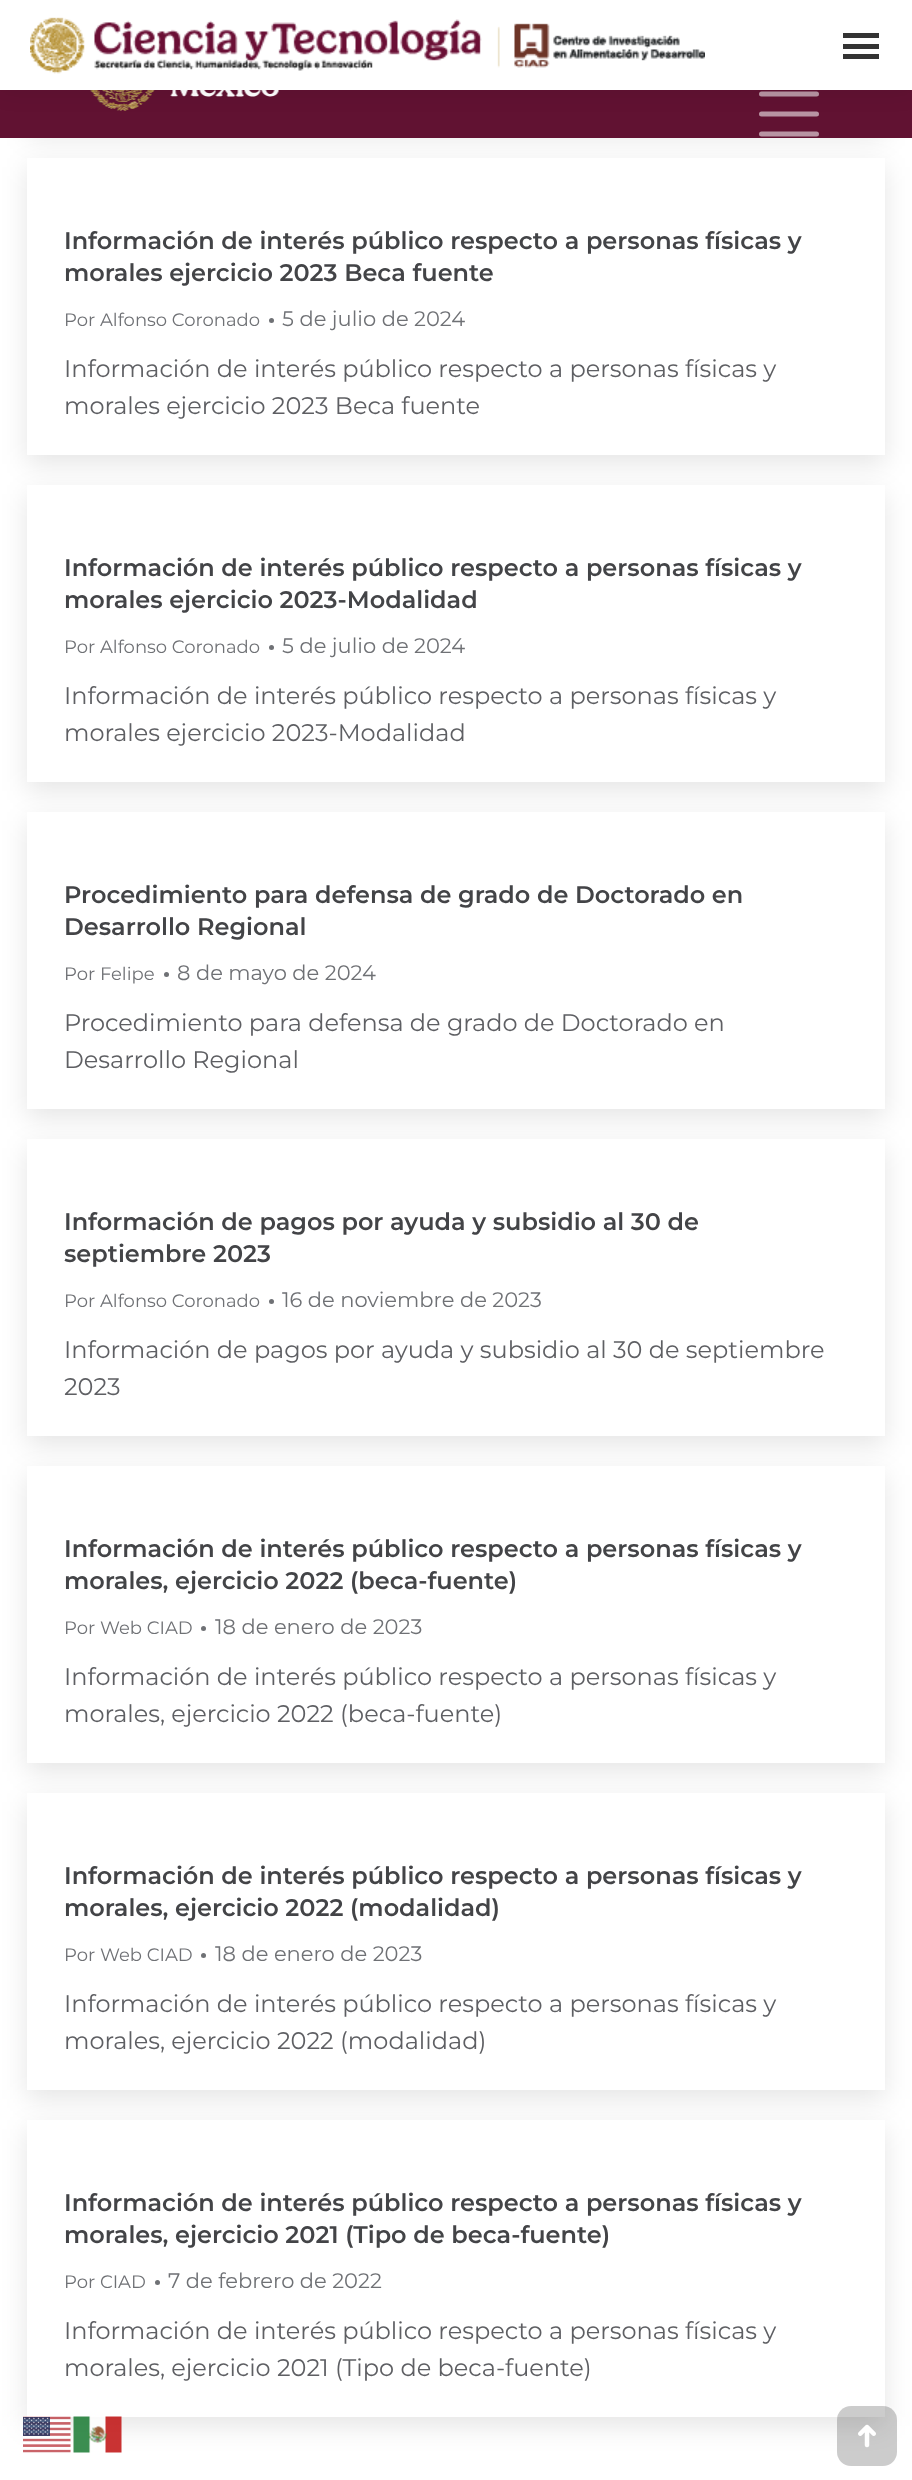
<svg xmlns="http://www.w3.org/2000/svg" width="912" height="2480">
<style>
.a{font:600 24px Montserrat;fill:#434447}
.b{font:18px Montserrat;fill:#6f7175}
.c{font:21px Montserrat;fill:#6f7175}
.d{font:24px Montserrat;fill:#5e5f63}
</style>
<rect width="100%" height="100%" fill="#fff"/>
<path fill="#0000001a" filter="blur(13.5px)" d="M27 -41h858v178H27z"/>
<path fill="#0000001a" filter="blur(13.5px)" d="M27 167h858v297H27z"/>
<path fill="#611232" d="M0 90h912v48H0z"/>
<image href="1.png" x="90" y="90" width="189" height="21"/>
<path fill="none" stroke="#b894a3" stroke-width="5" stroke-linecap="round" d="M761.5 94h55m-55 20h55m-55 20h55"/>
<path fill="#00000012" filter="blur(11px)" d="M-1 -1h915v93H-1z"/>
<path fill="#fff" d="M0 0h912v90H0z"/>
<image href="2.png" x="30" y="17" width="675" height="57"/>
<path fill="#333" d="M843 33h36v5H843z"/>
<path fill="#333" d="M843 44h36v5H843z"/>
<path fill="#333" d="M843 54h36v5H843z"/>
<path fill="#fff" d="M27 158h858v297H27z"/>
<circle fill="#6f7175" cx="271.5" cy="320.5" r="2.5"/>
<path fill="#0000001a" filter="blur(13.5px)" d="M27 494h858v297H27z"/>
<path fill="#fff" d="M27 485h858v297H27z"/>
<circle fill="#6f7175" cx="271.5" cy="647.5" r="2.5"/>
<path fill="#0000001a" filter="blur(13.5px)" d="M27 821h858v297H27z"/>
<path fill="#fff" d="M27 812h858v297H27z"/>
<circle fill="#6f7175" cx="166.5" cy="974.5" r="2.5"/>
<path fill="#0000001a" filter="blur(13.5px)" d="M27 1148h858v297H27z"/>
<path fill="#fff" d="M27 1139h858v297H27z"/>
<circle fill="#6f7175" cx="271.5" cy="1301.5" r="2.5"/>
<path fill="#0000001a" filter="blur(13.5px)" d="M27 1475h858v297H27z"/>
<path fill="#fff" d="M27 1466h858v297H27z"/>
<circle fill="#6f7175" cx="203.5" cy="1628.5" r="2.5"/>
<path fill="#0000001a" filter="blur(13.5px)" d="M27 1802h858v297H27z"/>
<path fill="#fff" d="M27 1793h858v297H27z"/>
<circle fill="#6f7175" cx="203.5" cy="1955.5" r="2.5"/>
<path fill="#0000001a" filter="blur(13.5px)" d="M27 2129h858v297H27z"/>
<path fill="#fff" d="M27 2120h858v297H27z"/>
<circle fill="#6f7175" cx="157.5" cy="2282.5" r="2.5"/>
<rect fill="#00000033" x="837" y="2406" width="60" height="60" rx="14"/>
<image href="3.png" x="858" y="2424" width="18" height="24"/>
<image href="4.png" x="23" y="2416" width="48" height="37"/>
<image href="5.png" x="73" y="2416" width="49" height="37"/>
<text class="a" x="64" y="249">Información de interés público respecto a personas físicas y</text>
<text class="a" x="64" y="281">morales ejercicio 2023 Beca fuente</text>
<text class="b" x="64" y="326">Por Alfonso Coronado</text>
<text class="c" x="282" y="326">5 de julio de 2024</text>
<text class="d" x="64" y="377">Información de interés público respecto a personas físicas y</text>
<text class="d" x="64" y="414">morales ejercicio 2023 Beca fuente</text>
<text class="a" x="64" y="576">Información de interés público respecto a personas físicas y</text>
<text class="a" x="64" y="608">morales ejercicio 2023-Modalidad</text>
<text class="b" x="64" y="653">Por Alfonso Coronado</text>
<text class="c" x="282" y="653">5 de julio de 2024</text>
<text class="d" x="64" y="704">Información de interés público respecto a personas físicas y</text>
<text class="d" x="64" y="741">morales ejercicio 2023-Modalidad</text>
<text class="a" x="64" y="903">Procedimiento para defensa de grado de Doctorado en</text>
<text class="a" x="64" y="935">Desarrollo Regional</text>
<text class="b" x="64" y="980">Por Felipe</text>
<text class="c" x="177" y="980">8 de mayo de 2024</text>
<text class="d" x="64" y="1031">Procedimiento para defensa de grado de Doctorado en</text>
<text class="d" x="64" y="1068">Desarrollo Regional</text>
<text class="a" x="64" y="1230">Información de pagos por ayuda y subsidio al 30 de</text>
<text class="a" x="64" y="1262">septiembre 2023</text>
<text class="b" x="64" y="1307">Por Alfonso Coronado</text>
<text class="c" x="282" y="1307">16 de noviembre de 2023</text>
<text class="d" x="64" y="1358">Información de pagos por ayuda y subsidio al 30 de septiembre</text>
<text class="d" x="64" y="1395">2023</text>
<text class="a" x="64" y="1557">Información de interés público respecto a personas físicas y</text>
<text class="a" x="64" y="1589">morales, ejercicio 2022 (beca-fuente)</text>
<text class="b" x="64" y="1634">Por Web CIAD</text>
<text class="c" x="215" y="1634">18 de enero de 2023</text>
<text class="d" x="64" y="1685">Información de interés público respecto a personas físicas y</text>
<text class="d" x="64" y="1722">morales, ejercicio 2022 (beca-fuente)</text>
<text class="a" x="64" y="1884">Información de interés público respecto a personas físicas y</text>
<text class="a" x="64" y="1916">morales, ejercicio 2022 (modalidad)</text>
<text class="b" x="64" y="1961">Por Web CIAD</text>
<text class="c" x="215" y="1961">18 de enero de 2023</text>
<text class="d" x="64" y="2012">Información de interés público respecto a personas físicas y</text>
<text class="d" x="64" y="2049">morales, ejercicio 2022 (modalidad)</text>
<text class="a" x="64" y="2211">Información de interés público respecto a personas físicas y</text>
<text class="a" x="64" y="2243">morales, ejercicio 2021 (Tipo de beca-fuente)</text>
<text class="b" x="64" y="2288">Por CIAD</text>
<text class="c" x="168" y="2288">7 de febrero de 2022</text>
<text class="d" x="64" y="2339">Información de interés público respecto a personas físicas y</text>
<text class="d" x="64" y="2376">morales, ejercicio 2021 (Tipo de beca-fuente)</text>
</svg>
